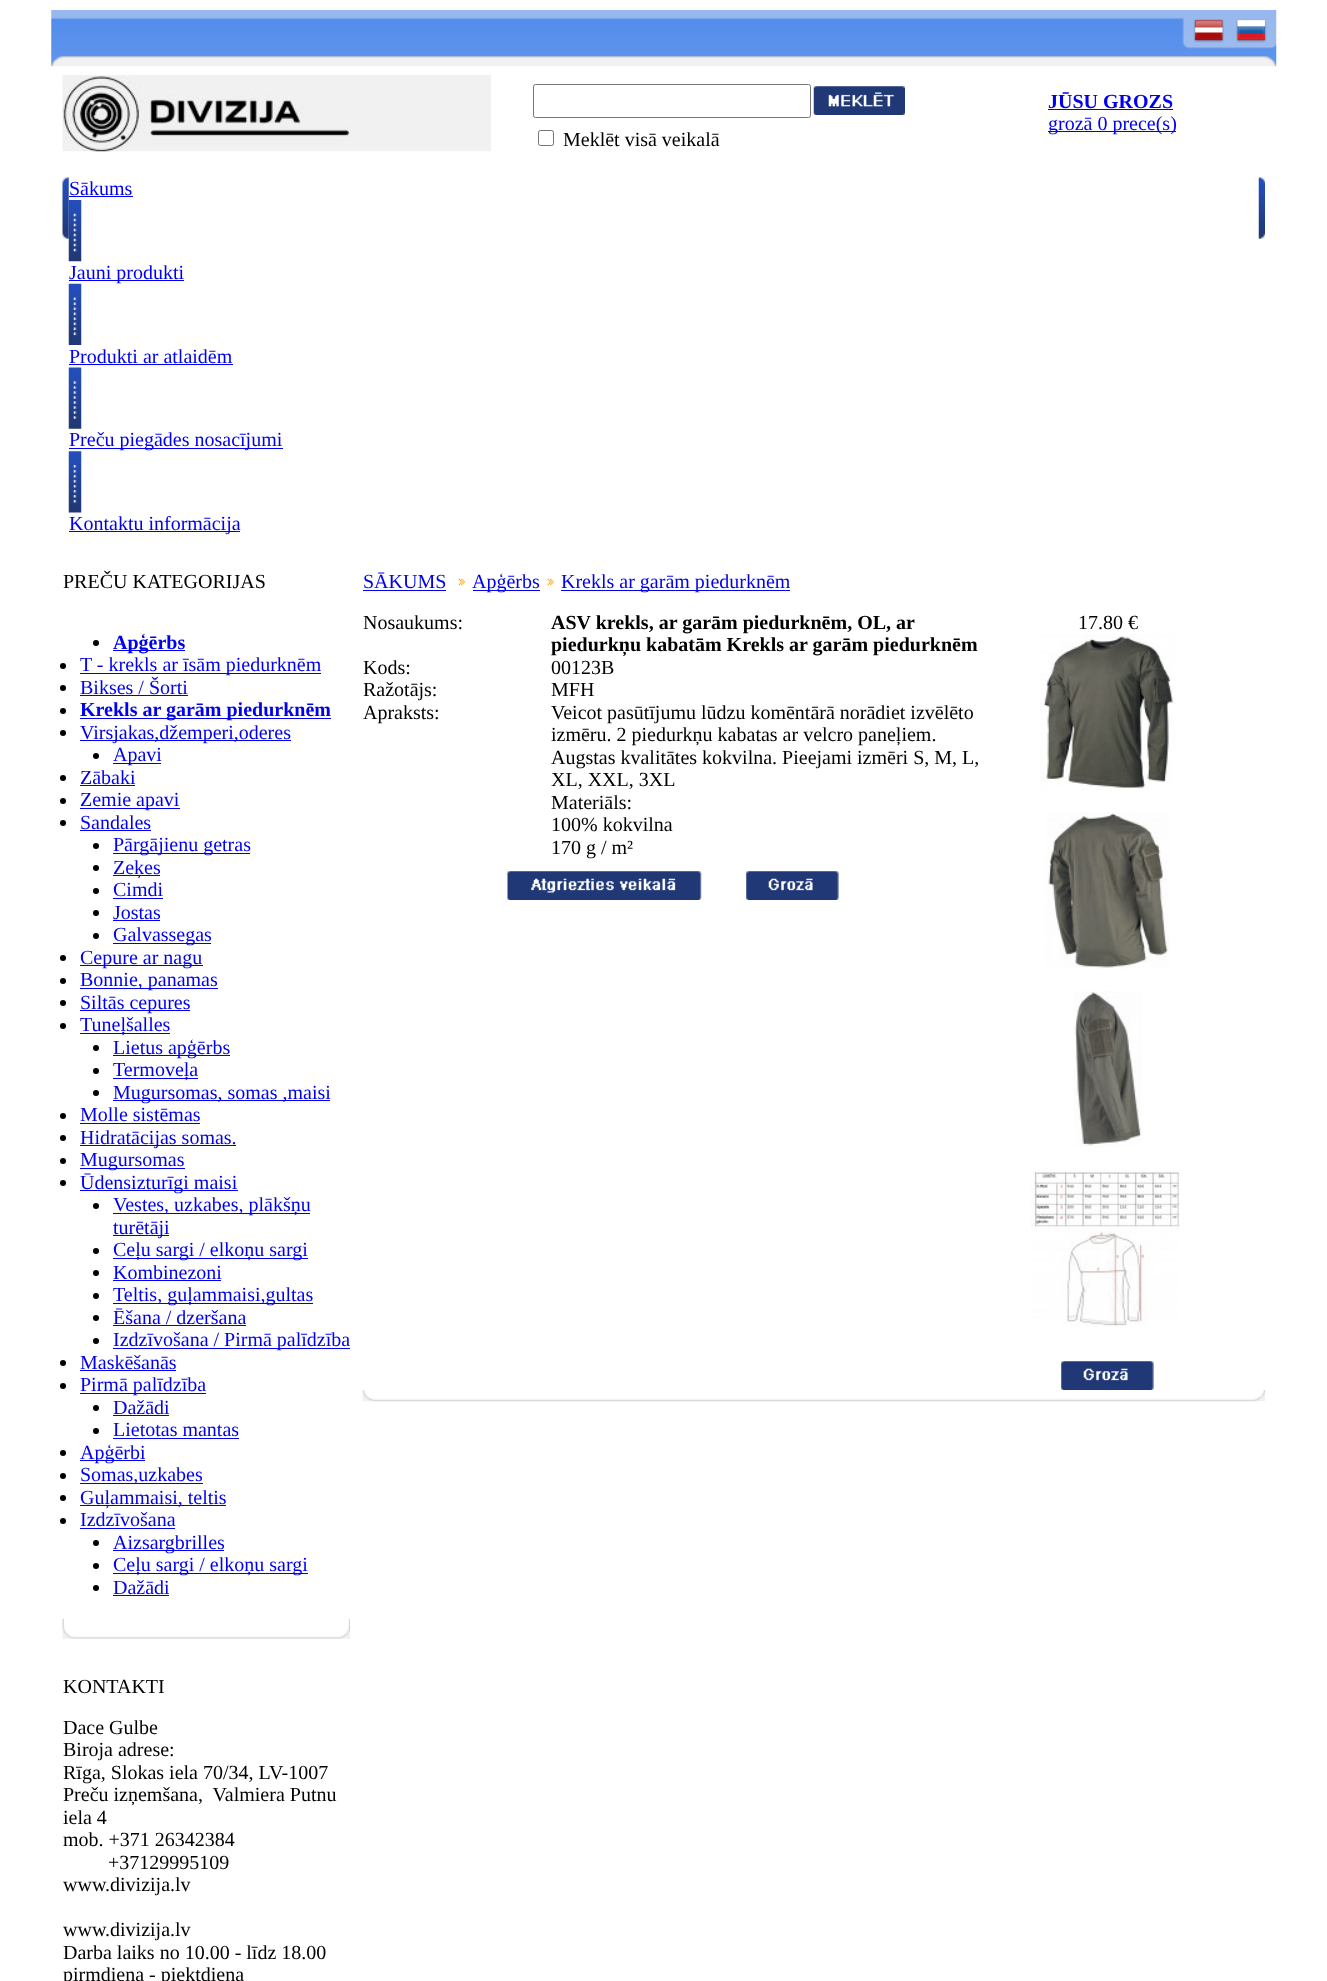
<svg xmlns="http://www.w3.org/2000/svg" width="1327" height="1981">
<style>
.a{font:bold 20px Liberation Serif;fill:#00e}
.b{font:20px Liberation Serif;fill:#00e}
.c{font:20px Liberation Serif;fill:#000}
.d{font:bold 20px Liberation Serif;fill:#000}
</style>
<rect width="100%" height="100%" fill="#fff"/>
<image href="1.png" x="51" y="10" width="1226" height="57"/>
<image href="2.png" x="1193" y="19" width="31" height="24"/>
<image href="3.png" x="1236" y="19" width="31" height="24"/>
<image href="4.png" x="62" y="75" width="429" height="77"/>
<path fill="#00e" d="M1048 109h125v1H1048z"/>
<path fill="#00e" d="M1048 131h128v1H1048z"/>
<rect fill="none" stroke="#767676" x="533.5" y="84.5" width="277" height="33" rx="2"/>
<image href="5.png" x="813" y="86" width="92" height="29"/>
<rect fill="none" stroke="#767676" x="538.5" y="130.5" width="15" height="15" rx="2"/>
<image href="6.png" x="62" y="177" width="7" height="62"/>
<path fill="#00e" d="M69 196h64v1H69z"/>
<image href="7.png" x="68" y="200" width="14" height="62"/>
<path fill="#00e" d="M69 280h115v1H69z"/>
<path fill="#00e" d="M69 364h164v1H69z"/>
<image href="9.png" x="68" y="367" width="14" height="62"/>
<path fill="#00e" d="M69 448h214v1H69z"/>
<image href="10.png" x="68" y="451" width="14" height="62"/>
<path fill="#00e" d="M69 531h171v1H69z"/>
<image href="11.png" x="1258" y="177" width="7" height="62"/>
<circle fill="#000" cx="96" cy="643" r="3"/>
<path fill="#00e" d="M113 650h72v1H113z"/>
<circle fill="#000" cx="63" cy="666" r="3"/>
<path fill="#00e" d="M80 673h241v1H80z"/>
<circle fill="#000" cx="63" cy="688" r="3"/>
<path fill="#00e" d="M80 695h108v1H80z"/>
<circle fill="#000" cx="63" cy="711" r="3"/>
<path fill="#00e" d="M80 718h251v1H80z"/>
<circle fill="#000" cx="63" cy="733" r="3"/>
<path fill="#00e" d="M80 740h211v1H80z"/>
<circle fill="#000" cx="96" cy="756" r="3"/>
<path fill="#00e" d="M113 763h48v1H113z"/>
<circle fill="#000" cx="63" cy="778" r="3"/>
<path fill="#00e" d="M80 785h55v1H80z"/>
<circle fill="#000" cx="63" cy="801" r="3"/>
<path fill="#00e" d="M80 808h100v1H80z"/>
<circle fill="#000" cx="63" cy="823" r="3"/>
<path fill="#00e" d="M80 830h71v1H80z"/>
<circle fill="#000" cx="96" cy="846" r="3"/>
<path fill="#00e" d="M113 853h137v1H113z"/>
<circle fill="#000" cx="96" cy="868" r="3"/>
<path fill="#00e" d="M113 875h47v1H113z"/>
<circle fill="#000" cx="96" cy="891" r="3"/>
<path fill="#00e" d="M113 898h50v1H113z"/>
<circle fill="#000" cx="96" cy="913" r="3"/>
<path fill="#00e" d="M113 920h47v1H113z"/>
<circle fill="#000" cx="96" cy="936" r="3"/>
<path fill="#00e" d="M113 943h98v1H113z"/>
<circle fill="#000" cx="63" cy="958" r="3"/>
<path fill="#00e" d="M80 965h123v1H80z"/>
<circle fill="#000" cx="63" cy="981" r="3"/>
<path fill="#00e" d="M80 988h138v1H80z"/>
<circle fill="#000" cx="63" cy="1003" r="3"/>
<path fill="#00e" d="M80 1010h110v1H80z"/>
<circle fill="#000" cx="63" cy="1026" r="3"/>
<path fill="#00e" d="M80 1033h90v1H80z"/>
<circle fill="#000" cx="96" cy="1048" r="3"/>
<path fill="#00e" d="M113 1055h117v1H113z"/>
<circle fill="#000" cx="96" cy="1071" r="3"/>
<path fill="#00e" d="M113 1078h85v1H113z"/>
<circle fill="#000" cx="96" cy="1093" r="3"/>
<path fill="#00e" d="M113 1100h217v1H113z"/>
<circle fill="#000" cx="63" cy="1116" r="3"/>
<path fill="#00e" d="M80 1123h120v1H80z"/>
<circle fill="#000" cx="63" cy="1138" r="3"/>
<path fill="#00e" d="M80 1145h156v1H80z"/>
<circle fill="#000" cx="63" cy="1161" r="3"/>
<path fill="#00e" d="M80 1168h105v1H80z"/>
<circle fill="#000" cx="63" cy="1183" r="3"/>
<path fill="#00e" d="M80 1190h158v1H80z"/>
<circle fill="#000" cx="96" cy="1206" r="3"/>
<path fill="#00e" d="M113 1213h197v1H113z"/>
<path fill="#00e" d="M113 1235h56v1H113z"/>
<circle fill="#000" cx="96" cy="1251" r="3"/>
<path fill="#00e" d="M113 1258h195v1H113z"/>
<circle fill="#000" cx="96" cy="1273" r="3"/>
<path fill="#00e" d="M113 1280h108v1H113z"/>
<circle fill="#000" cx="96" cy="1296" r="3"/>
<path fill="#00e" d="M113 1303h200v1H113z"/>
<circle fill="#000" cx="96" cy="1318" r="3"/>
<path fill="#00e" d="M113 1325h133v1H113z"/>
<circle fill="#000" cx="96" cy="1341" r="3"/>
<path fill="#00e" d="M113 1348h237v1H113z"/>
<circle fill="#000" cx="63" cy="1363" r="3"/>
<path fill="#00e" d="M80 1370h96v1H80z"/>
<circle fill="#000" cx="63" cy="1386" r="3"/>
<path fill="#00e" d="M80 1393h126v1H80z"/>
<circle fill="#000" cx="96" cy="1408" r="3"/>
<path fill="#00e" d="M113 1415h56v1H113z"/>
<circle fill="#000" cx="96" cy="1431" r="3"/>
<path fill="#00e" d="M113 1438h126v1H113z"/>
<circle fill="#000" cx="63" cy="1453" r="3"/>
<path fill="#00e" d="M80 1460h65v1H80z"/>
<circle fill="#000" cx="63" cy="1476" r="3"/>
<path fill="#00e" d="M80 1483h123v1H80z"/>
<circle fill="#000" cx="63" cy="1498" r="3"/>
<path fill="#00e" d="M80 1505h146v1H80z"/>
<circle fill="#000" cx="63" cy="1521" r="3"/>
<path fill="#00e" d="M80 1528h95v1H80z"/>
<circle fill="#000" cx="96" cy="1543" r="3"/>
<path fill="#00e" d="M113 1550h111v1H113z"/>
<circle fill="#000" cx="96" cy="1566" r="3"/>
<path fill="#00e" d="M113 1573h195v1H113z"/>
<circle fill="#000" cx="96" cy="1588" r="3"/>
<path fill="#00e" d="M113 1595h56v1H113z"/>
<image href="12.png" x="62" y="1618" width="288" height="21"/>
<path fill="#00e" d="M363 590h83v1H363z"/>
<image href="13.png" x="458" y="578" width="8" height="8"/>
<path fill="#00e" d="M473 590h67v1H473z"/>
<image href="14.png" x="547" y="578" width="7" height="8"/>
<path fill="#00e" d="M561 590h229v1H561z"/>
<image href="15.png" x="507" y="871" width="195" height="29"/>
<image href="16.png" x="746" y="871" width="93" height="29"/>
<image href="17.png" x="1040" y="634" width="135" height="156"/>
<image href="18.png" x="1043" y="812" width="127" height="157"/>
<image href="19.png" x="1074" y="991" width="68" height="156"/>
<image href="20.png" x="1030" y="1170" width="150" height="156"/>
<image href="16.png" x="1061" y="1361" width="93" height="29"/>
<image href="21.png" x="362" y="1390" width="903" height="12"/>
<text class="a" x="1048" y="108">JŪSU GROZS</text>
<text class="b" x="1048" y="130">grozā 0 prece(s)</text>
<text class="c" x="563" y="146">Meklēt visā veikalā</text>
<text class="b" x="69" y="195">Sākums</text>
<text class="b" x="69" y="279">Jauni produkti</text>
<image href="8.png" x="68" y="283" width="14" height="62"/>
<text class="b" x="69" y="363">Produkti ar atlaidēm</text>
<text class="b" x="69" y="446">Preču piegādes nosacījumi</text>
<text class="b" x="69" y="530">Kontaktu informācija</text>
<text class="c" x="63" y="588">PREČU KATEGORIJAS</text>
<text class="a" x="113" y="649">Apģērbs</text>
<text class="b" x="80" y="671">T - krekls ar īsām piedurknēm</text>
<text class="b" x="80" y="694">Bikses / Šorti</text>
<text class="a" x="80" y="716">Krekls ar garām piedurknēm</text>
<text class="b" x="80" y="739">Virsjakas,džemperi,oderes</text>
<text class="b" x="113" y="761">Apavi</text>
<text class="b" x="80" y="784">Zābaki</text>
<text class="b" x="80" y="806">Zemie apavi</text>
<text class="b" x="80" y="829">Sandales</text>
<text class="b" x="113" y="851">Pārgājienu getras</text>
<text class="b" x="113" y="874">Zeķes</text>
<text class="b" x="113" y="896">Cimdi</text>
<text class="b" x="113" y="919">Jostas</text>
<text class="b" x="113" y="941">Galvassegas</text>
<text class="b" x="80" y="964">Cepure ar nagu</text>
<text class="b" x="80" y="986">Bonnie, panamas</text>
<text class="b" x="80" y="1009">Siltās cepures</text>
<text class="b" x="80" y="1031">Tuneļšalles</text>
<text class="b" x="113" y="1054">Lietus apģērbs</text>
<text class="b" x="113" y="1076">Termoveļa</text>
<text class="b" x="113" y="1099">Mugursomas, somas ,maisi</text>
<text class="b" x="80" y="1121">Molle sistēmas</text>
<text class="b" x="80" y="1144">Hidratācijas somas.</text>
<text class="b" x="80" y="1166">Mugursomas</text>
<text class="b" x="80" y="1189">Ūdensizturīgi maisi</text>
<text class="b" x="113" y="1211">Vestes, uzkabes, plākšņu</text>
<text class="b" x="113" y="1234">turētāji</text>
<text class="b" x="113" y="1256">Ceļu sargi / elkoņu sargi</text>
<text class="b" x="113" y="1279">Kombinezoni</text>
<text class="b" x="113" y="1301">Teltis, guļammaisi,gultas</text>
<text class="b" x="113" y="1324">Ēšana / dzeršana</text>
<text class="b" x="113" y="1346">Izdzīvošana / Pirmā palīdzība</text>
<text class="b" x="80" y="1369">Maskēšanās</text>
<text class="b" x="80" y="1391">Pirmā palīdzība</text>
<text class="b" x="113" y="1414">Dažādi</text>
<text class="b" x="113" y="1436">Lietotas mantas</text>
<text class="b" x="80" y="1459">Apģērbi</text>
<text class="b" x="80" y="1481">Somas,uzkabes</text>
<text class="b" x="80" y="1504">Guļammaisi, teltis</text>
<text class="b" x="80" y="1526">Izdzīvošana</text>
<text class="b" x="113" y="1549">Aizsargbrilles</text>
<text class="b" x="113" y="1571">Ceļu sargi / elkoņu sargi</text>
<text class="b" x="113" y="1594">Dažādi</text>
<text class="c" x="63" y="1693">KONTAKTI</text>
<text class="c" x="63" y="1734">Dace Gulbe</text>
<text class="c" x="63" y="1756">Biroja adrese:</text>
<text class="c" x="63" y="1779">Rīga, Slokas iela 70/34, LV-1007</text>
<text class="c" xml:space="preserve" x="63" y="1801">Preču izņemšana,  Valmiera Putnu</text>
<text class="c" x="63" y="1824">iela 4</text>
<text class="c" x="63" y="1846">mob. +371 26342384</text>
<text class="c" x="108" y="1869">+37129995109</text>
<text class="c" x="63" y="1891">www.divizija.lv</text>
<text class="c" x="63" y="1936">www.divizija.lv</text>
<text class="c" x="63" y="1959">Darba laiks no 10.00 - līdz 18.00</text>
<text class="c" x="63" y="1981">pirmdiena - piektdiena</text>
<text class="b" x="363" y="588">SĀKUMS</text>
<text class="b" x="472" y="588">Apģērbs</text>
<text class="b" x="561" y="588">Krekls ar garām piedurknēm</text>
<text class="c" x="363" y="629">Nosaukums:</text>
<text class="d" x="551" y="629">ASV krekls, ar garām piedurknēm, OL, ar</text>
<text class="d" x="551" y="651">piedurkņu kabatām Krekls ar garām piedurknēm</text>
<text class="c" x="363" y="674">Kods:</text>
<text class="c" x="551" y="674">00123B</text>
<text class="c" x="363" y="696">Ražotājs:</text>
<text class="c" x="551" y="696">MFH</text>
<text class="c" x="363" y="719">Apraksts:</text>
<text class="c" x="551" y="719">Veicot pasūtījumu lūdzu komēntārā norādiet izvēlēto</text>
<text class="c" x="551" y="741">izmēru. 2 piedurkņu kabatas ar velcro paneļiem.</text>
<text class="c" x="551" y="764">Augstas kvalitātes kokvilna. Pieejami izmēri S, M, L,</text>
<text class="c" x="551" y="786">XL, XXL, 3XL</text>
<text class="c" x="551" y="809">Materiāls:</text>
<text class="c" x="551" y="831">100% kokvilna</text>
<text class="c" x="551" y="854">170 g / m²</text>
<text class="c" x="1078" y="629">17.80 €</text>
</svg>
